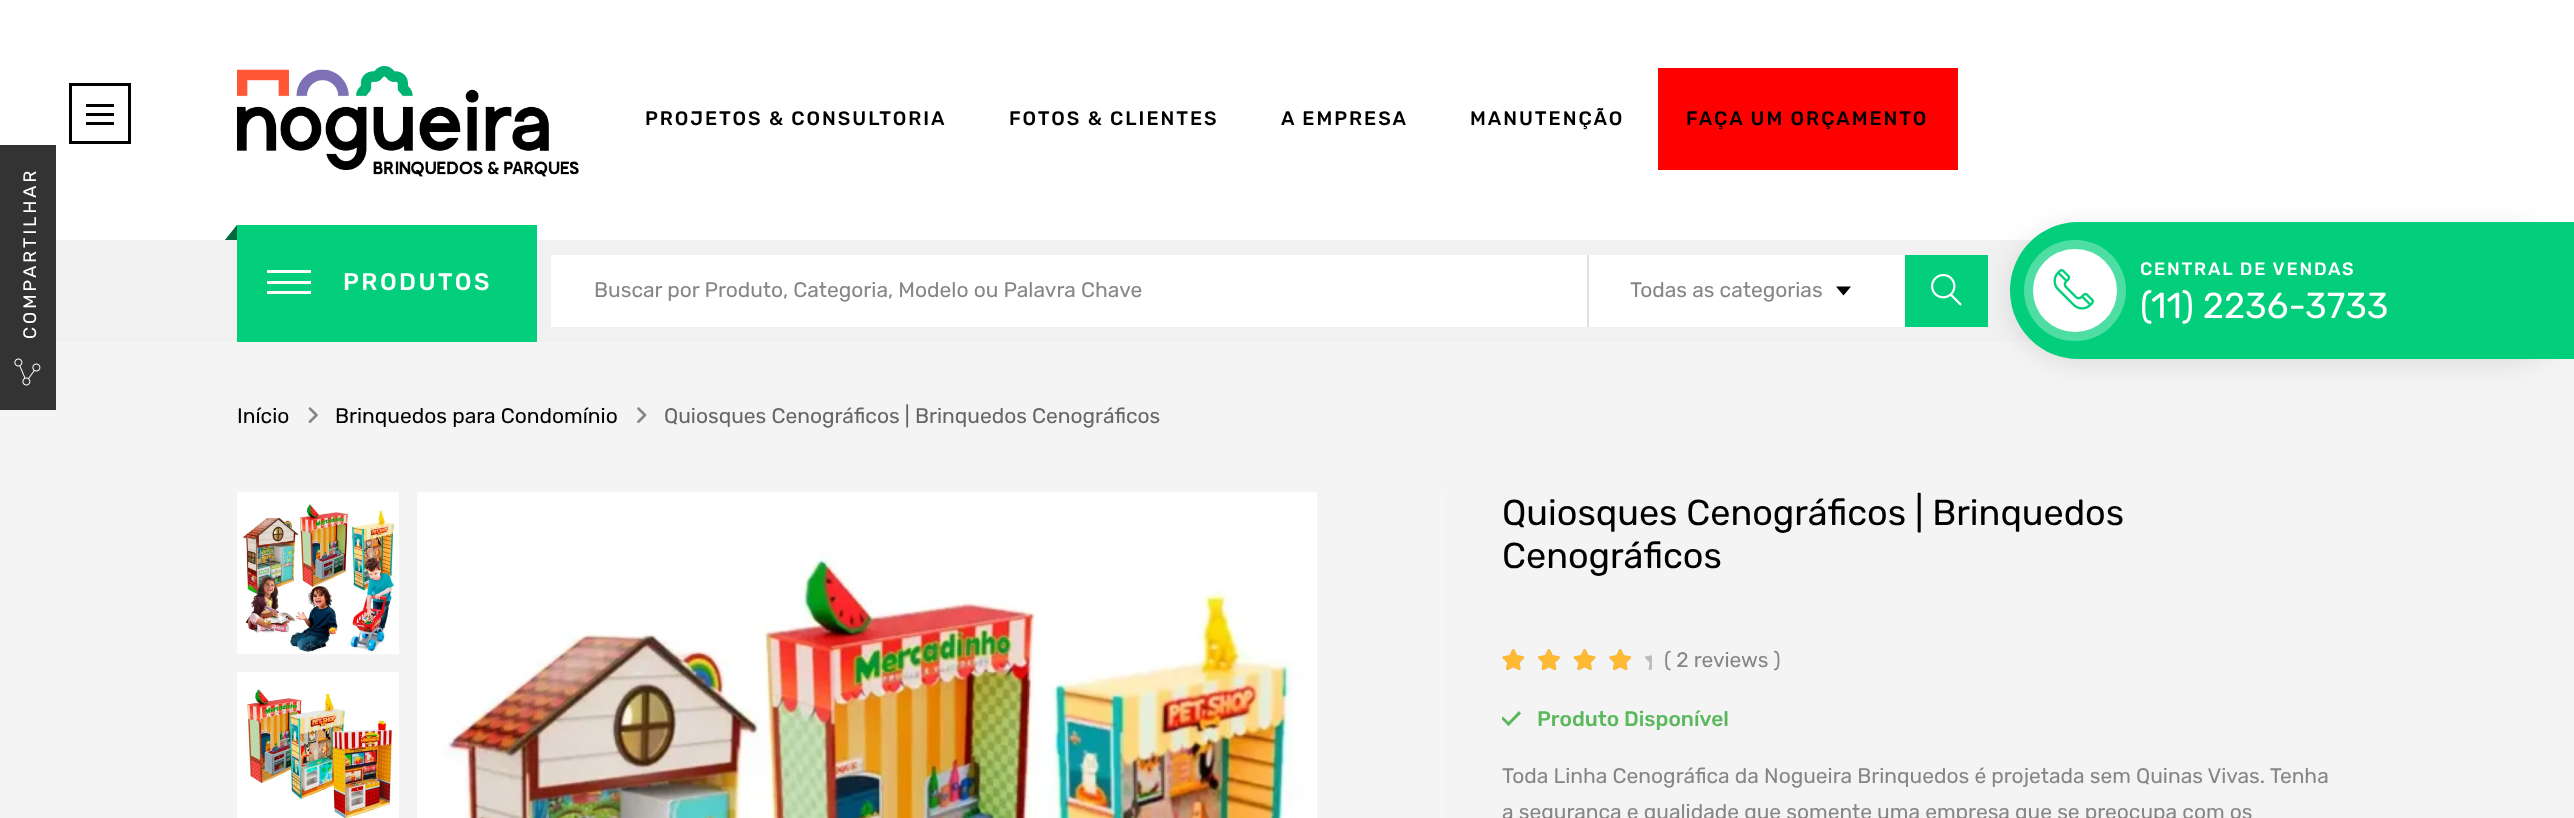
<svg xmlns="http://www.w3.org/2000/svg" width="2574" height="818">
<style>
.a{font:500 19.5px Rubik;letter-spacing:1.95px;fill:#000}
.b{font:500 24px Rubik;letter-spacing:2.5px;fill:#fff}
.c{font:21px Rubik;fill:#868686}
.d{font:500 18px Rubik;letter-spacing:1.75px;fill:#fff}
.e{font:36px Rubik;fill:#fff}
.f{font:18px Rubik;letter-spacing:3px;fill:#fff}
.g{font:36px Rubik;fill:#000}
.h{font:500 21px Rubik;fill:#5cb85c}
.i{font:21px Rubik;fill:#000}
.j{font:21px Rubik;fill:#666}
</style>
<defs>
<clipPath id="clip1"><path d="M1502 492h835v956H1502z"/></clipPath>
<clipPath id="clip2"><path d="M2141 240h420v84H2141z"/></clipPath>
</defs>
<rect width="100%" height="100%" fill="#fff"/>
<path fill="none" stroke="#000" stroke-width="3" d="M70.5 84.5h59v58H70.5z"/>
<path fill="#000" d="M86 104h28v3H86z"/>
<path fill="#000" d="M86 113h28v3H86z"/>
<path fill="#000" d="M86 122h28v3H86z"/>
<image href="1.png" x="237" y="66" width="342" height="111"/>
<path fill="#f00" d="M1658 68h300v102H1658z"/>
<path fill="#f1f1f1" d="M56 240h1978v102H56z"/>
<path fill="#02ce7b" d="M237 225h300v117H237z"/>
<path fill="#02ce7b" d="M237 225v15h-12z"/>
<path fill="#fff" d="M267 270h44v3H267z"/>
<path fill="#fff" d="M267 281h44v3H267z"/>
<path fill="#fff" d="M267 291h44v3H267z"/>
<path fill="#00000080" d="M237 225v15h-12z"/>
<path fill="#fff" d="M551 255h1354v72H551z"/>
<path fill="#e0e0e0" d="M1587 255h2v72H1587z"/>
<path fill="#000" d="M1836 286.5h15l-7.5 9z"/>
<path fill="#02ce7b" d="M1905 255h83v72H1905z"/>
<image href="2.png" x="1931" y="273" width="31" height="33"/>
<path fill="#f4f4f4" d="M0 342h2574v476H0z"/>
<rect fill="#0000001a" filter="blur(13.5px)" x="2010" y="227" width="564" height="136" rx="68"/>
<path fill="#02ce7b" d="M2078.5 222h495.5v137h-495.5c-38 0-68.5-30.5-68.5-68.5c0-38 30.5-68.5 68.5-68.5z"/>
<rect fill="#4edda3" x="2024" y="240" width="102" height="101" rx="50.5"/>
<rect fill="#fff" x="2033" y="249" width="84" height="83" rx="41.5"/>
<image href="3.png" x="2053" y="269" width="41" height="41"/>
<path fill="#333" d="M0 145h56v265H0z"/>
<image href="4.png" x="14" y="358" width="27" height="28"/>
<image href="5.png" x="1502" y="649" width="150" height="21"/>
<image href="6.png" x="1502" y="649" width="129" height="22"/>
<path fill="#5cb85c" d="M1506.5 724l12.5-13l2 2.5l-12.5 12.5z"/>
<g clip-path="url(#clip1)">
<path fill="#5cb85c" d="M1501 718.5l2-2l7.5 7.5l-2 2z"/>
</g>
<image href="7.png" x="237" y="492" width="162" height="162"/>
<image href="8.png" x="237" y="672" width="162" height="146"/>
<image href="9.png" x="417" y="492" width="900" height="326"/>
<path fill="#fafafa" d="M1441 492h1v326H1441z"/>
<image href="10.png" x="308" y="407" width="10" height="16"/>
<image href="11.png" x="637" y="407" width="10" height="16"/>
<text class="a" x="645" y="125">PROJETOS &amp; CONSULTORIA</text>
<text class="a" x="1009" y="125">FOTOS &amp; CLIENTES</text>
<text class="a" x="1281" y="125">A EMPRESA</text>
<text class="a" x="1470" y="125">MANUTENÇÃO</text>
<text class="a" x="1686" y="125">FAÇA UM ORÇAMENTO</text>
<text class="b" x="343" y="290">PRODUTOS</text>
<text class="c" x="594" y="297">Buscar por Produto, Categoria, Modelo ou Palavra Chave</text>
<text class="c" x="1630" y="297">Todas as categorias</text>
<g clip-path="url(#clip2)">
<text class="d" x="2140" y="275">CENTRAL DE VENDAS</text>
</g>
<text class="e" x="2140" y="318">(11) 2236-3733</text>
<text class="f" x="36" y="339" transform="rotate(-90 36 339)">COMPARTILHAR</text>
<text class="g" x="1502" y="525">Quiosques Cenográficos | Brinquedos</text>
<text class="g" x="1502" y="568">Cenográficos</text>
<text class="c" x="1664" y="667">( 2 reviews )</text>
<text class="h" x="1537" y="726">Produto Disponível</text>
<text class="c" x="1502" y="783">Toda Linha Cenográfica da Nogueira Brinquedos é projetada sem Quinas Vivas. Tenha</text>
<text class="c" x="1502" y="819">a segurança e qualidade que somente uma empresa que se preocupa com os</text>
<text class="i" x="237" y="423">Início</text>
<text class="i" x="335" y="423">Brinquedos para Condomínio</text>
<text class="j" x="664" y="423">Quiosques Cenográficos | Brinquedos Cenográficos</text>
</svg>
